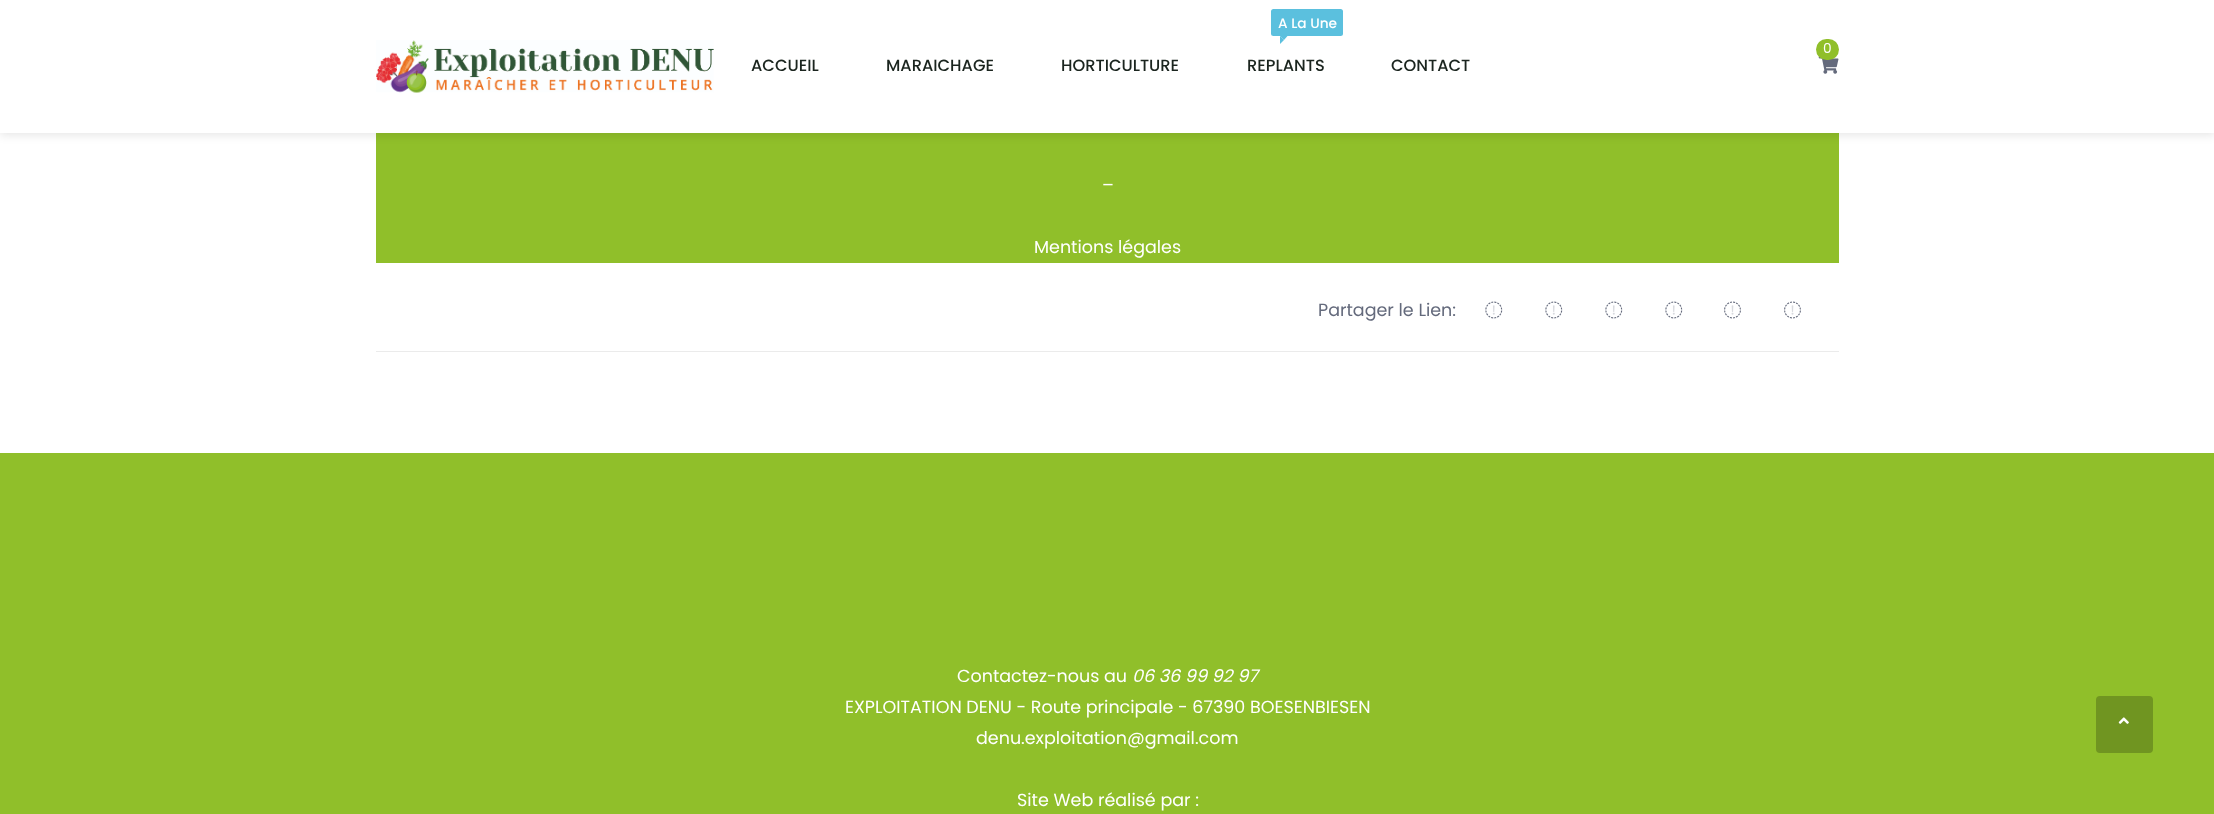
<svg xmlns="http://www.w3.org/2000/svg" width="2214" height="814">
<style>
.a{font:500 16.25px Poppins;fill:#1b251f}
.b{font:500 13.75px Poppins;fill:#fff}
.c{font:13.75px Poppins;fill:#fff}
.d{font:17.5px Poppins;fill:#fff}
.e{font:17.5px Poppins;fill:#646a7c}
.f{font:italic 17.5px Poppins;fill:#fff}
</style>
<rect width="100%" height="100%" fill="#fff"/>
<path fill="#90bf2a" d="M376 133h1463v130H376z"/>
<path fill="#0000001a" filter="blur(5px)" d="M0 3h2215v132H0z"/>
<path fill="#fff" d="M0 0h2214v133H0z"/>
<image href="1.png" x="376" y="40" width="338" height="53"/>
<rect fill="#5bc0de" x="1271" y="9" width="72" height="27" rx="2.5"/>
<path fill="#5bc0de" d="M1280 36h7.5l-3.5 4z"/>
<path fill="#5bc0de" d="M1280 44v-8l4 4z"/>
<image href="2.png" x="1818" y="56" width="21" height="18"/>
<rect fill="#90bf2a" x="1816" y="39" width="23" height="21" rx="10.5"/>
<path fill="#ebebeb" d="M376 351h1463v1H376z"/>
<image href="3.png" x="1485" y="301" width="18" height="18"/>
<image href="3.png" x="1545" y="301" width="18" height="18"/>
<image href="3.png" x="1605" y="301" width="18" height="18"/>
<image href="3.png" x="1665" y="301" width="18" height="18"/>
<image href="4.png" x="1724" y="301" width="17" height="18"/>
<image href="4.png" x="1784" y="301" width="17" height="18"/>
<path fill="#90bf2a" d="M0 453h2214v361H0z"/>
<rect fill="#709521" stroke="#709521" stroke-width="3" x="2097.5" y="697.5" width="54" height="54" rx="2.5"/>
<image href="5.png" x="2118" y="717" width="11" height="7"/>
<text class="a" x="751" y="71">ACCUEIL</text>
<text class="a" x="886" y="71">MARAICHAGE</text>
<text class="a" x="1061" y="71">HORTICULTURE</text>
<text class="b" x="1278" y="28">A La Une</text>
<text class="a" x="1247" y="71">REPLANTS</text>
<text class="a" x="1391" y="71">CONTACT</text>
<text class="c" x="1823" y="53">0</text>
<text class="d" x="1102" y="191">–</text>
<text class="d" x="1034" y="253">Mentions légales</text>
<text class="e" x="1318" y="316">Partager le Lien:</text>
<text class="d" x="957" y="682">Contactez-nous au</text>
<text class="f" x="1132" y="682">06 36 99 92 97</text>
<text class="d" x="845" y="713">EXPLOITATION DENU - Route principale - 67390 BOESENBIESEN</text>
<text class="d" x="976" y="744">denu.exploitation@gmail.com</text>
<text class="d" x="1017" y="806">Site Web réalisé par :</text>
</svg>
